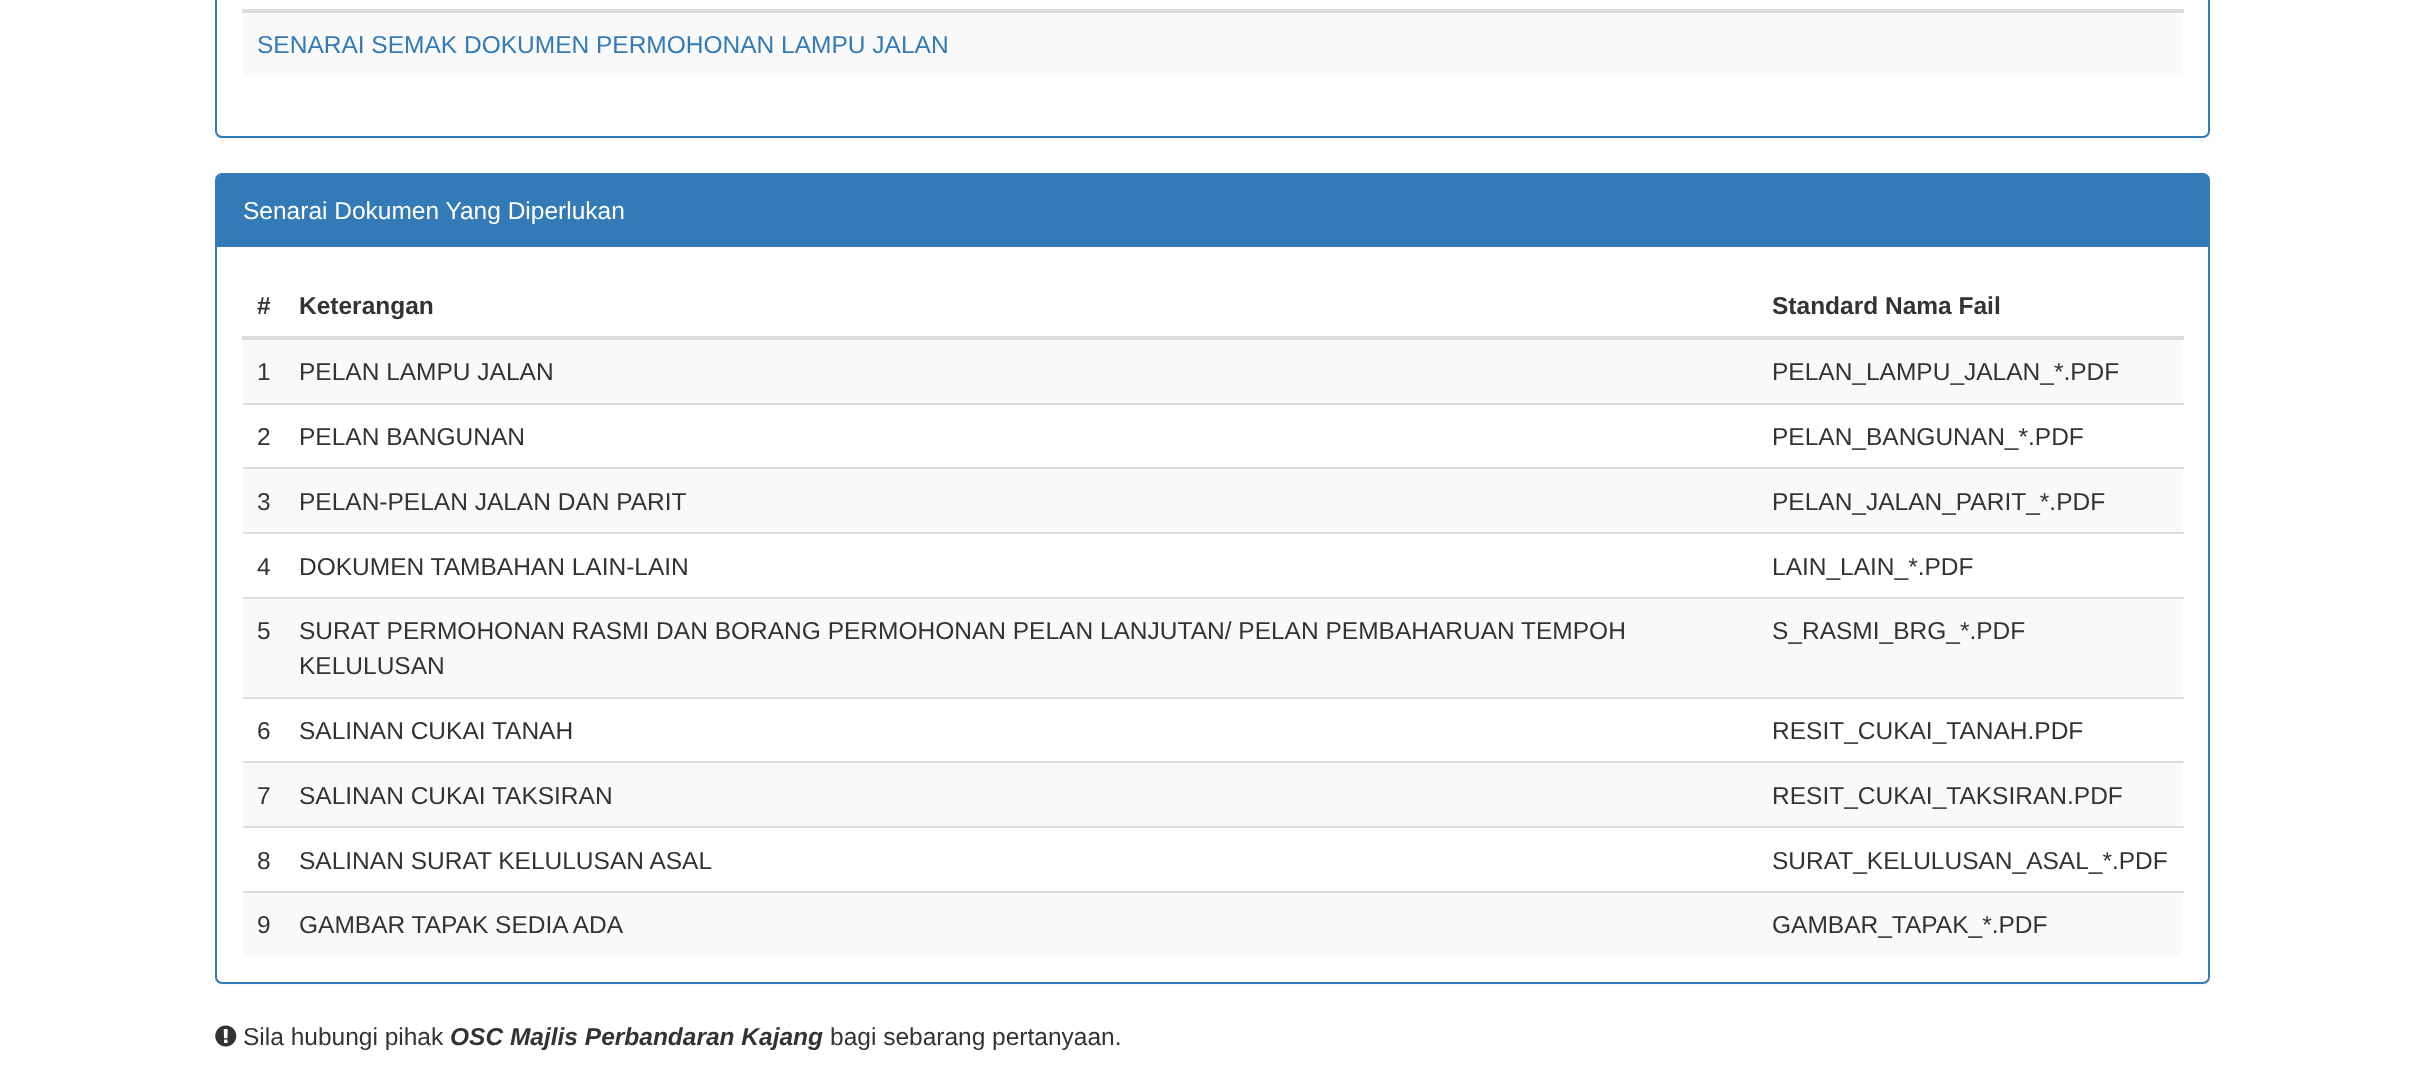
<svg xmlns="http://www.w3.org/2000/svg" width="2425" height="1071">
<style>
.a{font:24.5px Liberation Sans;fill:#337ab7}
.b{font:24.5px Liberation Sans;fill:#fff}
.c{font:bold 24.5px Liberation Sans;fill:#333}
.d{font:24.5px Liberation Sans;fill:#333}
.e{font:italic bold 24.5px Liberation Sans;fill:#333}
</style>
<rect width="100%" height="100%" fill="#fff"/>
<rect fill="#0000000d" filter="blur(1px)" x="215" y="-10" width="1995" height="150" rx="7"/>
<rect fill="#fff" stroke="#337ab7" stroke-width="2" x="216" y="-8" width="1993" height="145" rx="6"/>
<path fill="#ddd" d="M242 9h1942v4H242z"/>
<path fill="#f9f9f9" d="M243 13h1939v62H243z"/>
<rect fill="#0000000d" filter="blur(1px)" x="215" y="175" width="1995" height="810" rx="7"/>
<rect fill="#fff" stroke="#337ab7" stroke-width="2" x="216" y="174" width="1993" height="809" rx="6"/>
<path fill="#337ab7" d="M222 175h1982c3 0 5 2 5 5v67h-1992v-67c0-3 2-5 5-5z"/>
<path fill="#ddd" d="M242 336h1942v4H242z"/>
<path fill="#f9f9f9" d="M243 340h1939v63H243z"/>
<path fill="#ddd" d="M243 403h1941v2H243z"/>
<path fill="#f9f9f9" d="M243 469h1939v63H243z"/>
<path fill="#ddd" d="M243 467h1941v2H243z"/>
<path fill="#ddd" d="M243 532h1941v2H243z"/>
<path fill="#f9f9f9" d="M243 599h1939v98H243z"/>
<path fill="#ddd" d="M243 597h1941v2H243z"/>
<path fill="#ddd" d="M243 697h1941v2H243z"/>
<path fill="#f9f9f9" d="M243 763h1939v63H243z"/>
<path fill="#ddd" d="M243 761h1941v2H243z"/>
<path fill="#ddd" d="M243 826h1941v2H243z"/>
<path fill="#f9f9f9" d="M243 893h1939v58c0 3-2 5-5 5h-1929c-3 0-5-2-5-5z"/>
<path fill="#ddd" d="M243 891h1941v2H243z"/>
<image href="1.png" x="215" y="1025" width="22" height="22"/>
<text class="a" x="257" y="53">SENARAI SEMAK DOKUMEN PERMOHONAN LAMPU JALAN</text>
<text class="b" x="243" y="219">Senarai Dokumen Yang Diperlukan</text>
<text class="c" x="257" y="314">#</text>
<text class="c" x="299" y="314">Keterangan</text>
<text class="c" x="1772" y="314">Standard Nama Fail</text>
<text class="d" x="257" y="380">1</text>
<text class="d" x="299" y="380">PELAN LAMPU JALAN</text>
<text class="d" x="1772" y="380">PELAN_LAMPU_JALAN_*.PDF</text>
<text class="d" x="257" y="445">2</text>
<text class="d" x="299" y="445">PELAN BANGUNAN</text>
<text class="d" x="1772" y="445">PELAN_BANGUNAN_*.PDF</text>
<text class="d" x="257" y="510">3</text>
<text class="d" x="299" y="510">PELAN-PELAN JALAN DAN PARIT</text>
<text class="d" x="1772" y="510">PELAN_JALAN_PARIT_*.PDF</text>
<text class="d" x="257" y="575">4</text>
<text class="d" x="299" y="575">DOKUMEN TAMBAHAN LAIN-LAIN</text>
<text class="d" x="1772" y="575">LAIN_LAIN_*.PDF</text>
<text class="d" x="257" y="639">5</text>
<text class="d" x="299" y="639">SURAT PERMOHONAN RASMI DAN BORANG PERMOHONAN PELAN LANJUTAN/ PELAN PEMBAHARUAN TEMPOH</text>
<text class="d" x="299" y="674">KELULUSAN</text>
<text class="d" x="1772" y="639">S_RASMI_BRG_*.PDF</text>
<text class="d" x="257" y="739">6</text>
<text class="d" x="299" y="739">SALINAN CUKAI TANAH</text>
<text class="d" x="1772" y="739">RESIT_CUKAI_TANAH.PDF</text>
<text class="d" x="257" y="804">7</text>
<text class="d" x="299" y="804">SALINAN CUKAI TAKSIRAN</text>
<text class="d" x="1772" y="804">RESIT_CUKAI_TAKSIRAN.PDF</text>
<text class="d" x="257" y="869">8</text>
<text class="d" x="299" y="869">SALINAN SURAT KELULUSAN ASAL</text>
<text class="d" x="1772" y="869">SURAT_KELULUSAN_ASAL_*.PDF</text>
<text class="d" x="257" y="933">9</text>
<text class="d" x="299" y="933">GAMBAR TAPAK SEDIA ADA</text>
<text class="d" x="1772" y="933">GAMBAR_TAPAK_*.PDF</text>
<text class="d" x="243" y="1045">Sila hubungi pihak</text>
<text class="e" x="450" y="1045">OSC Majlis Perbandaran Kajang</text>
<text class="d" x="830" y="1045">bagi sebarang pertanyaan.</text>
</svg>
